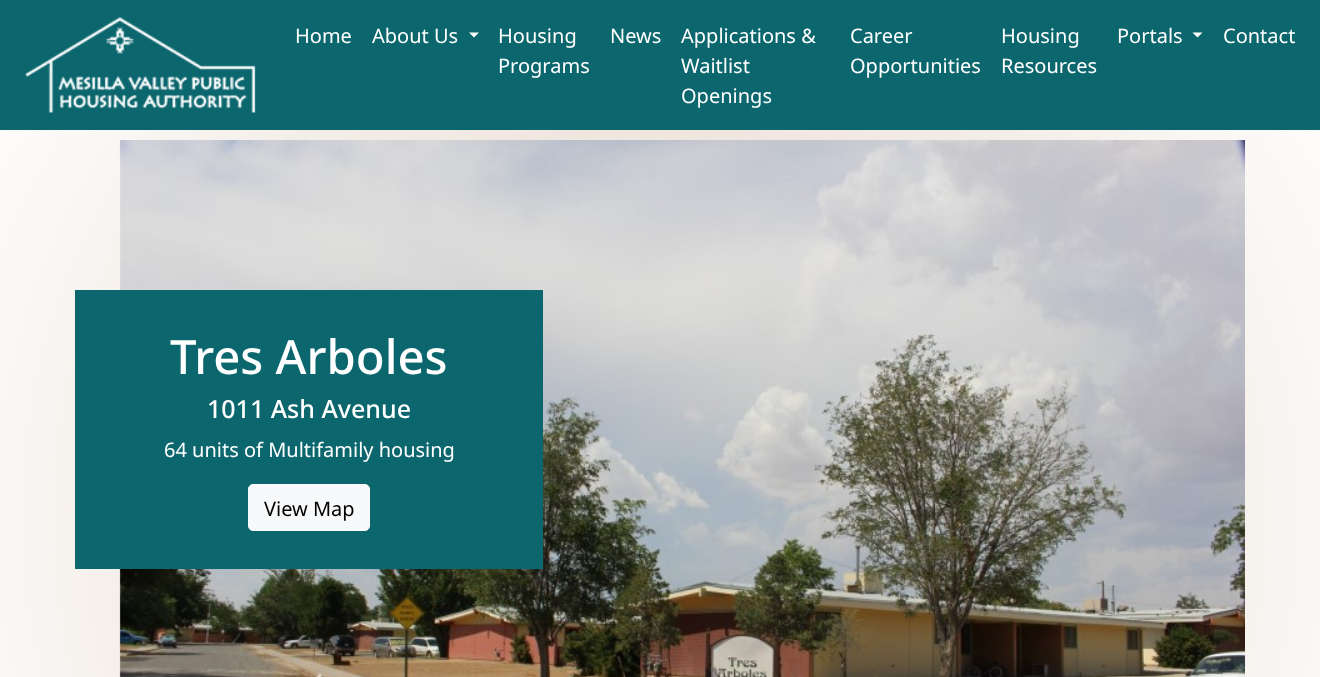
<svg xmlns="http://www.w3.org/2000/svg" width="1320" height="677">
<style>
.a{font:20px Noto Sans;fill:#fff}
.b{font:500 47.25px Noto Sans;fill:#fff}
.c{font:500 25px Noto Sans;fill:#fff}
.d{font:20px Noto Sans;fill:#000}
</style>
<defs>
<radialGradient id="g1" gradientUnits="userSpaceOnUse" cx="660" cy="515" r="764"><stop offset="0" stop-color="#e2d1c3"/><stop offset="1" stop-color="#fdfcfb"/></radialGradient>
</defs>
<rect width="100%" height="100%" fill="#fff"/>
<path fill="#0b666e" d="M0 0h1320v130H0z"/>
<image href="1.png" x="25" y="17" width="231" height="96"/>
<path fill="#fff" d="M469 32.5h10l-5 5z"/>
<path fill="#fff" d="M1192.5 32.5h10l-5 5z"/>
<path fill="url(#g1)" d="M0 130h1320v547H0z"/>
<image href="2.png" x="119" y="140" width="1126" height="537"/>
<path fill="#0b666e" d="M75 290h468v279H75z"/>
<rect fill="#f8f9fa" stroke="#f8f9fa" x="248.5" y="484.5" width="121" height="46" rx="4.5"/>
<text class="a" x="295" y="43">Home</text>
<text class="a" x="372" y="43">About Us</text>
<text class="a" x="498" y="43">Housing</text>
<text class="a" x="498" y="73">Programs</text>
<text class="a" x="610" y="43">News</text>
<text class="a" x="681" y="43">Applications &amp;</text>
<text class="a" x="681" y="73">Waitlist</text>
<text class="a" x="681" y="103">Openings</text>
<text class="a" x="850" y="43">Career</text>
<text class="a" x="850" y="73">Opportunities</text>
<text class="a" x="1001" y="43">Housing</text>
<text class="a" x="1001" y="73">Resources</text>
<text class="a" x="1117" y="43">Portals</text>
<text class="a" x="1223" y="43">Contact</text>
<text class="b" x="170" y="374">Tres Arboles</text>
<text class="c" x="207" y="418">1011 Ash Avenue</text>
<text class="a" x="164" y="457">64 units of Multifamily housing</text>
<text class="d" x="264" y="516">View Map</text>
</svg>
